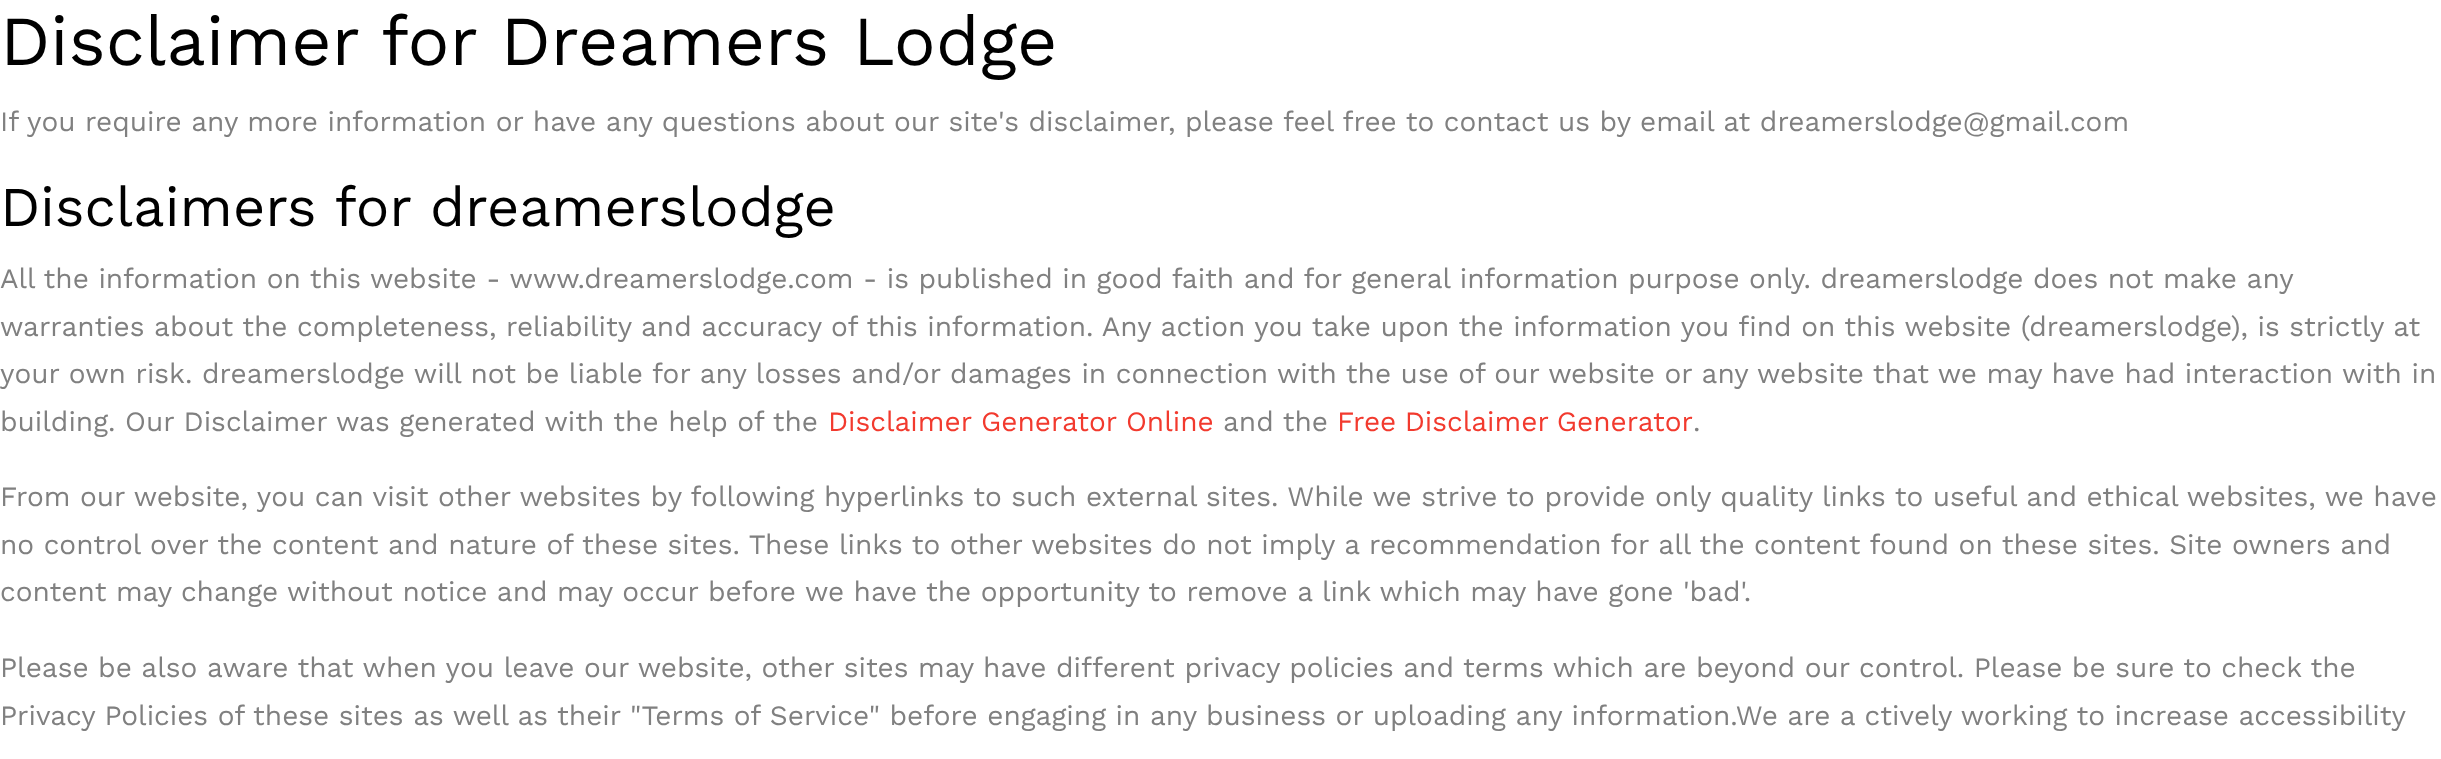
<svg xmlns="http://www.w3.org/2000/svg" width="2441" height="759">
<style>
.a{font:70px Work Sans;fill:#000}
.b{font:28px Work Sans;fill:#808080}
.c{font:56px Work Sans;fill:#000}
.d{font:28px Work Sans;fill:#f23a2e}
</style>
<rect width="100%" height="100%" fill="#fff"/>
<text class="a" x="0" y="65">Disclaimer for Dreamers Lodge</text>
<text class="b" x="0" y="131">If you require any more information or have any questions about our site's disclaimer, please feel free to contact us by email at dreamerslodge@gmail.com</text>
<text class="c" x="0" y="226">Disclaimers for dreamerslodge</text>
<text class="b" x="0" y="288">All the information on this website - www.dreamerslodge.com - is published in good faith and for general information purpose only. dreamerslodge does not make any</text>
<text class="b" x="0" y="336">warranties about the completeness, reliability and accuracy of this information. Any action you take upon the information you find on this website (dreamerslodge), is strictly at</text>
<text class="b" x="0" y="383">your own risk. dreamerslodge will not be liable for any losses and/or damages in connection with the use of our website or any website that we may have had interaction with in</text>
<text class="b" x="0" y="431">building. Our Disclaimer was generated with the help of the</text>
<text class="d" x="828" y="431">Disclaimer Generator Online</text>
<text class="b" x="1223" y="431">and the</text>
<text class="d" x="1337" y="431" word-spacing="-1">Free Disclaimer Generator</text>
<text class="b" x="1693" y="431">.</text>
<text class="b" x="0" y="506">From our website, you can visit other websites by following hyperlinks to such external sites. While we strive to provide only quality links to useful and ethical websites, we have</text>
<text class="b" x="0" y="554">no control over the content and nature of these sites. These links to other websites do not imply a recommendation for all the content found on these sites. Site owners and</text>
<text class="b" x="0" y="601">content may change without notice and may occur before we have the opportunity to remove a link which may have gone 'bad'.</text>
<text class="b" x="0" y="677">Please be also aware that when you leave our website, other sites may have different privacy policies and terms which are beyond our control. Please be sure to check the</text>
<text class="b" x="0" y="725">Privacy Policies of these sites as well as their "Terms of Service" before engaging in any business or uploading any information.We are a ctively working to increase accessibility</text>
</svg>
